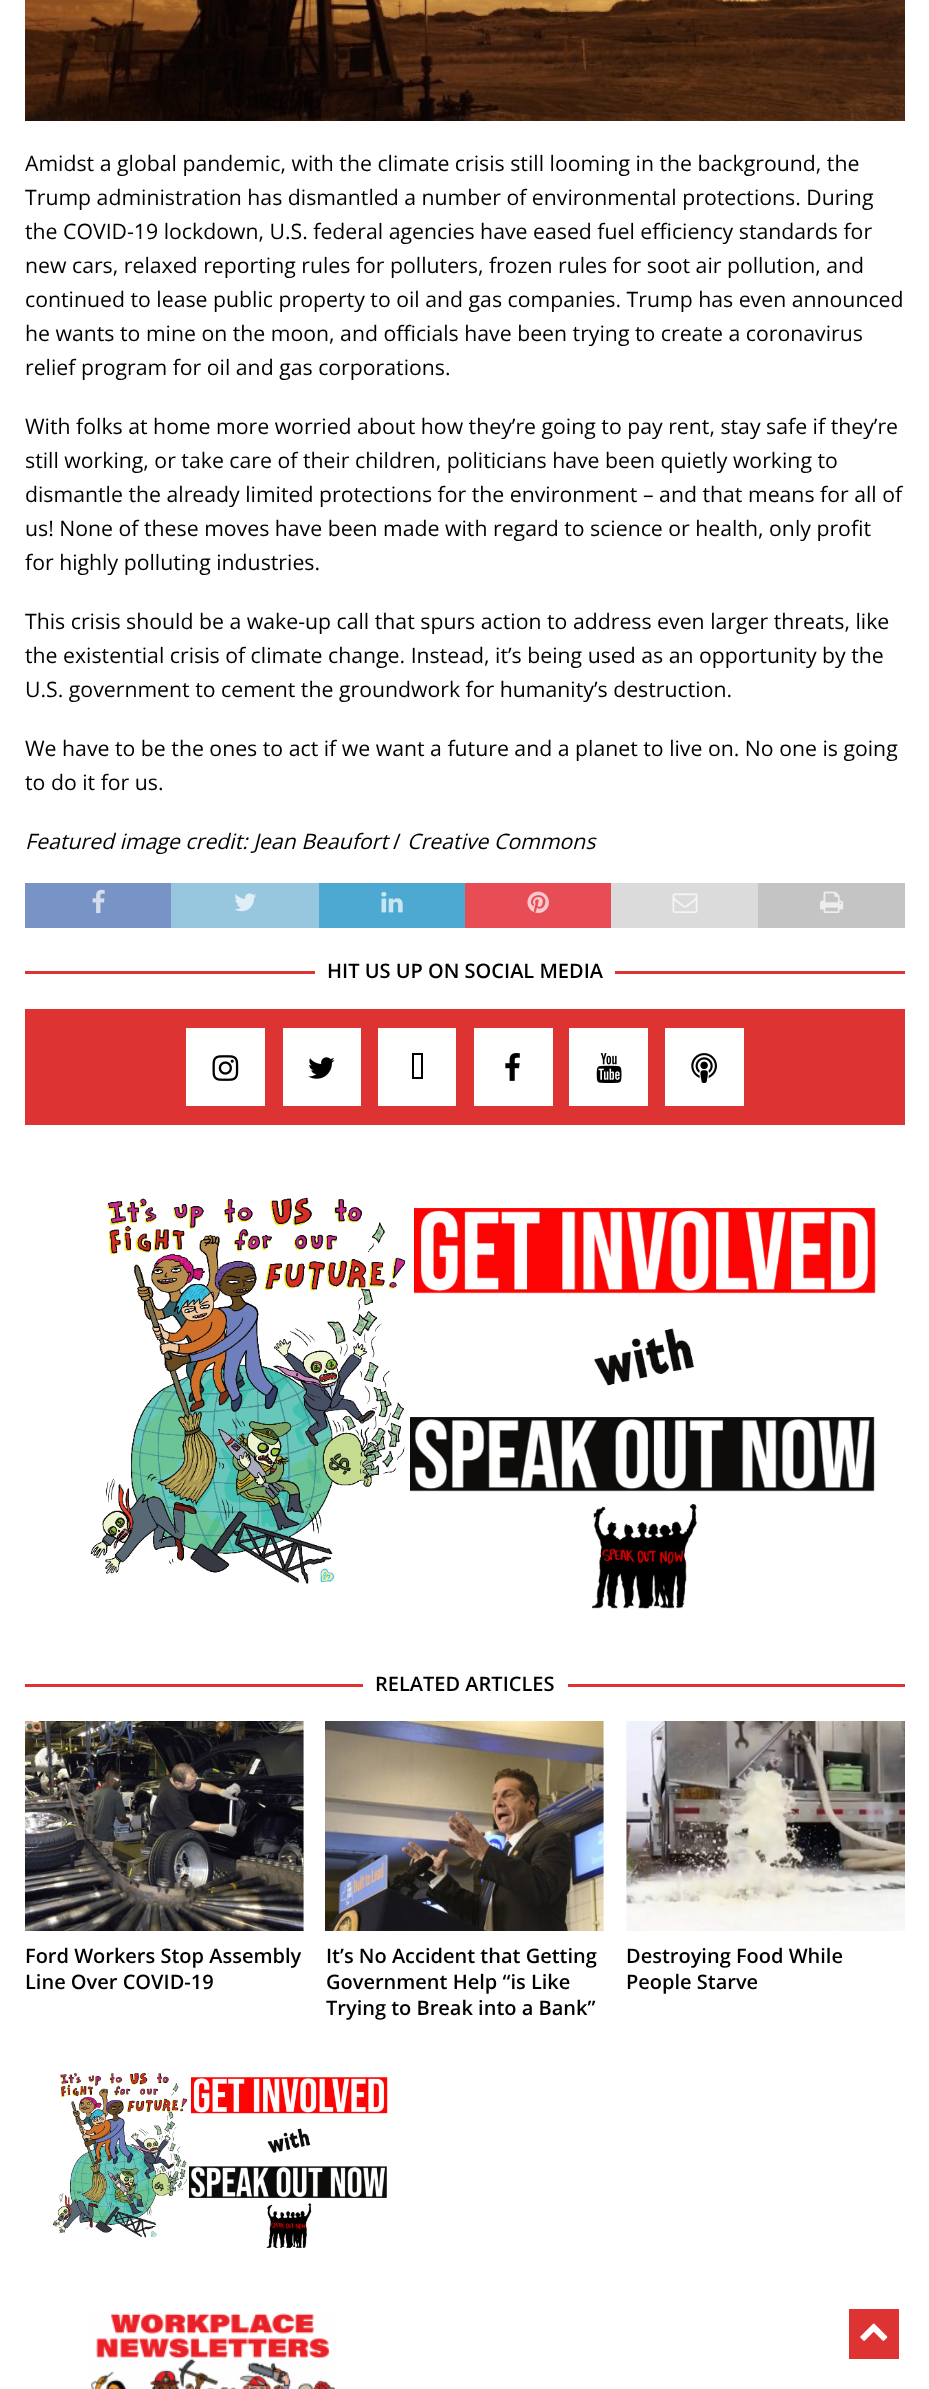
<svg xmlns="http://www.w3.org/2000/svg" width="929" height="2389">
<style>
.a{font:21.25px Open Sans;fill:#000}
.b{font:italic 21.25px Open Sans;fill:#000}
.c{font:600 20px Open Sans;fill:#000}
</style>
<rect width="100%" height="100%" fill="#fff"/>
<image href="1.png" x="25" y="0" width="880" height="121"/>
<path fill="#7893c6" d="M25 883h146v45H25z"/>
<image href="2.png" x="92" y="889" width="13" height="25"/>
<path fill="#97c6df" d="M171 883h148v45H171z"/>
<image href="3.png" x="234" y="893" width="23" height="19"/>
<path fill="#4da9d2" d="M319 883h146v45H319z"/>
<image href="4.png" x="381" y="891" width="22" height="22"/>
<path fill="#e84d56" d="M465 883h146v45H465z"/>
<image href="5.png" x="527" y="891" width="22" height="22"/>
<path fill="#dbdbdb" d="M611 883h147v45H611z"/>
<image href="6.png" x="672" y="893" width="26" height="20"/>
<path fill="#c4c4c4" d="M758 883h147v45H758z"/>
<image href="7.png" x="820" y="891" width="24" height="22"/>
<path fill="#d33" d="M25 971h880v3H25z"/>
<path fill="#fff" d="M315 971h300v3H315z"/>
<path fill="#d33" d="M25 1009h880v116H25z"/>
<path fill="#fff" d="M186 1028h79v78H186z"/>
<image href="8.png" x="212" y="1055" width="27" height="26"/>
<path fill="#fff" d="M283 1028h78v78H283z"/>
<image href="9.png" x="308" y="1057" width="27" height="22"/>
<path fill="#fff" d="M378 1028h78v78H378z"/>
<path fill="#000" d="M414 1077h7v-22h-7zm-2 2v-26h11v26z"/>
<path fill="#fff" d="M474 1028h79v78H474z"/>
<image href="10.png" x="505" y="1053" width="15" height="28"/>
<path fill="#fff" d="M569 1028h79v78H569z"/>
<image href="11.png" x="596" y="1053" width="26" height="30"/>
<path fill="#fff" d="M665 1028h79v78H665z"/>
<image href="12.png" x="691" y="1053" width="26" height="30"/>
<image href="13.png" x="90" y="1197" width="786" height="412"/>
<path fill="#d33" d="M25 1684h880v3H25z"/>
<path fill="#fff" d="M363 1684h205v3H363z"/>
<image href="14.png" x="25" y="1721" width="279" height="210"/>
<image href="15.png" x="325" y="1721" width="279" height="210"/>
<image href="16.png" x="626" y="1721" width="279" height="210"/>
<image href="17.png" x="52" y="2072" width="336" height="177"/>
<image href="18.png" x="90" y="2313" width="246" height="76"/>
<path fill="#d33" d="M849 2309h50v50H849z"/>
<image href="19.png" x="860" y="2323" width="28" height="18"/>
<text class="a" x="25" y="171">Amidst a global pandemic, with the climate crisis still looming in the background, the</text>
<text class="a" x="25" y="205">Trump administration has dismantled a number of environmental protections. During</text>
<text class="a" x="25" y="239">the COVID-19 lockdown, U.S. federal agencies have eased fuel efficiency standards for</text>
<text class="a" x="25" y="273">new cars, relaxed reporting rules for polluters, frozen rules for soot air pollution, and</text>
<text class="a" x="25" y="307">continued to lease public property to oil and gas companies. Trump has even announced</text>
<text class="a" x="25" y="341">he wants to mine on the moon, and officials have been trying to create a coronavirus</text>
<text class="a" x="25" y="375">relief program for oil and gas corporations.</text>
<text class="a" x="25" y="434">With folks at home more worried about how they’re going to pay rent, stay safe if they’re</text>
<text class="a" x="25" y="468">still working, or take care of their children, politicians have been quietly working to</text>
<text class="a" x="25" y="502">dismantle the already limited protections for the environment – and that means for all of</text>
<text class="a" x="25" y="536">us! None of these moves have been made with regard to science or health, only profit</text>
<text class="a" x="25" y="570">for highly polluting industries.</text>
<text class="a" x="25" y="629">This crisis should be a wake-up call that spurs action to address even larger threats, like</text>
<text class="a" x="25" y="663">the existential crisis of climate change. Instead, it’s being used as an opportunity by the</text>
<text class="a" x="25" y="697">U.S. government to cement the groundwork for humanity’s destruction.</text>
<text class="a" x="25" y="756">We have to be the ones to act if we want a future and a planet to live on. No one is going</text>
<text class="a" x="25" y="790">to do it for us.</text>
<text class="b" x="25" y="849">Featured image credit: Jean Beaufort</text>
<text class="a" x="393" y="849">/</text>
<text class="b" x="407" y="849">Creative Commons</text>
<text class="c" x="327" y="978">HIT US UP ON SOCIAL MEDIA</text>
<text class="c" x="375" y="1691">RELATED ARTICLES</text>
<text class="c" x="25" y="1963">Ford Workers Stop Assembly</text>
<text class="c" x="25" y="1989">Line Over COVID-19</text>
<text class="c" x="326" y="1963">It’s No Accident that Getting</text>
<text class="c" x="326" y="1989">Government Help “is Like</text>
<text class="c" x="326" y="2015">Trying to Break into a Bank”</text>
<text class="c" x="626" y="1963">Destroying Food While</text>
<text class="c" x="626" y="1989">People Starve</text>
</svg>
